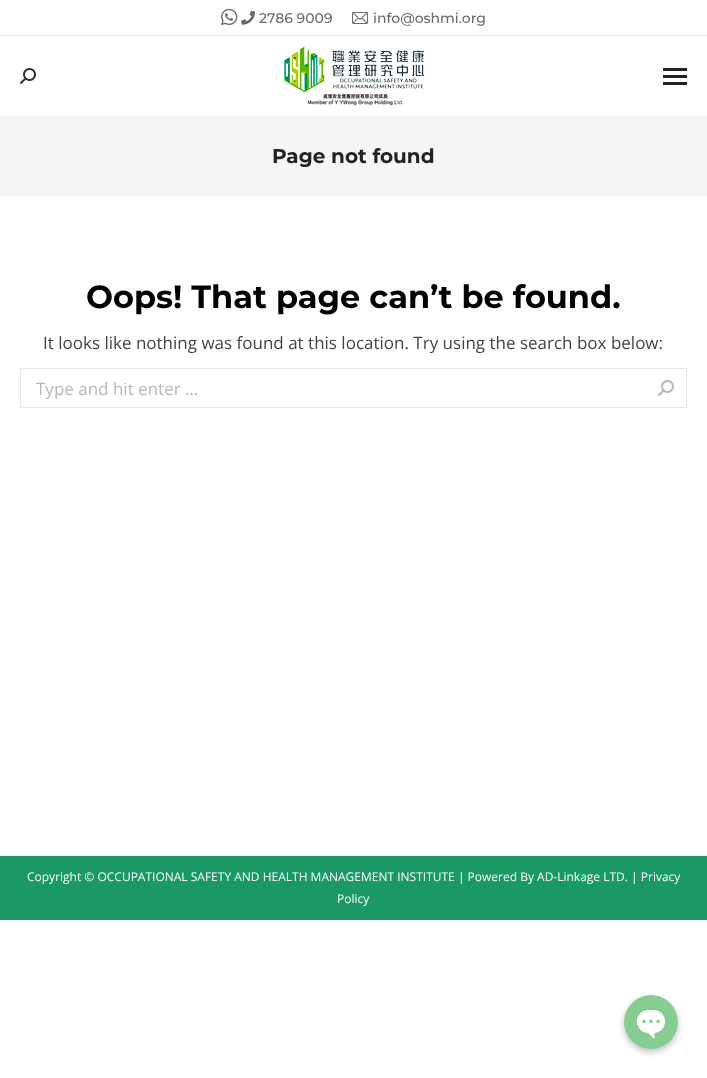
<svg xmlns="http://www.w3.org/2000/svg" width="707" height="1078">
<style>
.a{font:500 14px Montserrat;fill:#6b6b6b}
.b{font:bold 20px Montserrat;fill:#222}
.c{font:bold 32px Montserrat;fill:#000}
.d{font:17px Open Sans;fill:#444}
.e{font:17px Open Sans;fill:#b8b8b8}
.f{font:12px Open Sans;fill:#fff}
</style>
<rect width="100%" height="100%" fill="#fff"/>
<image href="1.png" x="221" y="8" width="17" height="18"/>
<image href="2.png" x="241" y="10" width="14" height="15"/>
<image href="3.png" x="352" y="12" width="16" height="12"/>
<path fill="#e6e6e6" d="M0 35h707v1H0z"/>
<image href="4.png" x="20" y="68" width="16" height="16"/>
<image href="5.png" x="284" y="46" width="140" height="60"/>
<path fill="#222" d="M663 68h24v3H663z"/>
<path fill="#222" d="M663 75h24v3H663z"/>
<path fill="#222" d="M663 82h24v3H663z"/>
<path fill="#f5f5f5" d="M0 116h707v80H0z"/>
<path fill="none" stroke="#e6e6e6" d="M20.5 368.5h666v39H20.5z"/>
<image href="6.png" x="658" y="380" width="16" height="16"/>
<path fill="#1a9866" d="M0 856h707v64H0z"/>
<rect fill="#00000040" filter="blur(3px)" x="624" y="998" width="54" height="54" rx="27"/>
<image href="7.png" x="624" y="995" width="54" height="54"/>
<text class="a" x="259" y="23">2786 9009</text>
<text class="a" x="373" y="23">info@oshmi.org</text>
<text class="b" x="272" y="163">Page not found</text>
<text class="c" x="86" y="308">Oops! That page can’t be found.</text>
<text class="d" x="43" y="349">It looks like nothing was found at this location. Try using the search box below:</text>
<text class="e" x="36" y="395">Type and hit enter …</text>
<text class="f" x="27" y="881">Copyright © OCCUPATIONAL SAFETY AND HEALTH MANAGEMENT INSTITUTE | Powered By AD-Linkage LTD. | Privacy</text>
<text class="f" x="337" y="903">Policy</text>
</svg>
